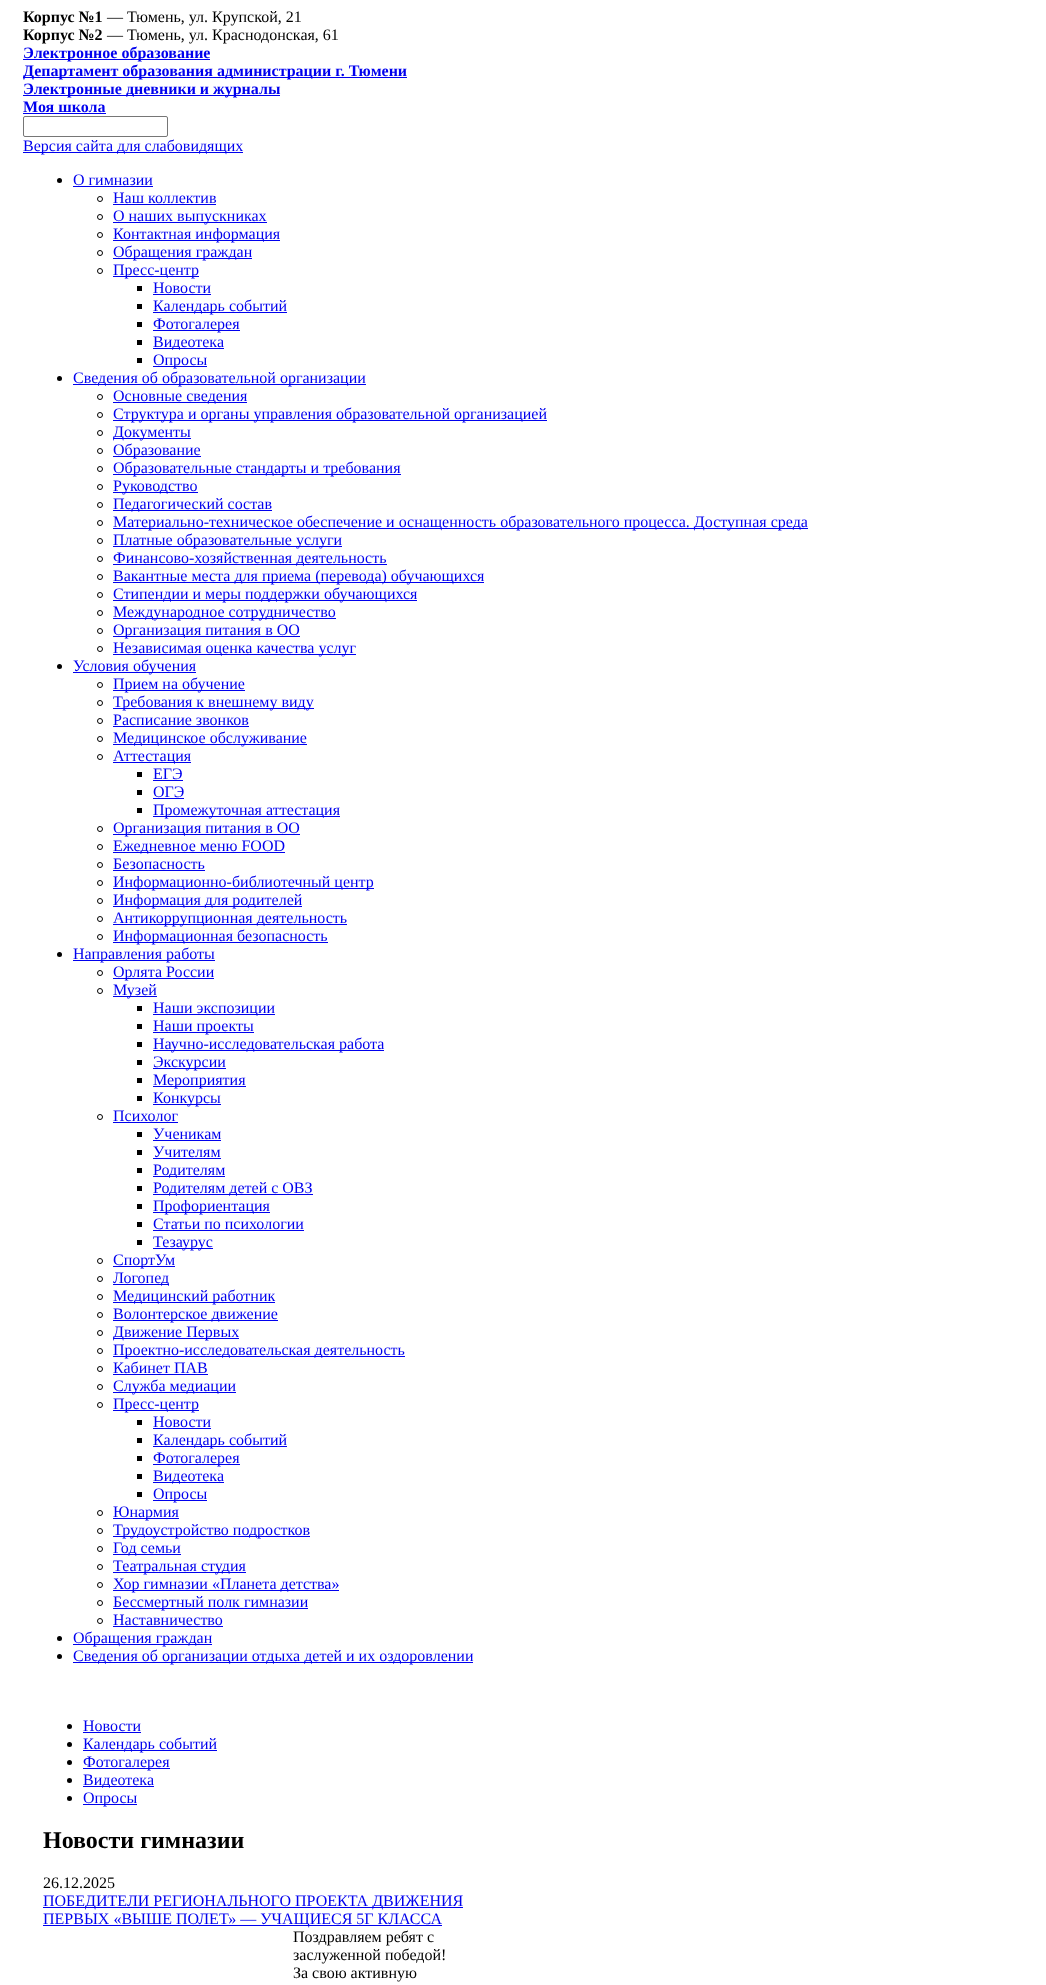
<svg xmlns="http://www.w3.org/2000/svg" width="1046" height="1985">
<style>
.a{font:bold 16px Liberation Serif;fill:#000}
.b{font:16px Liberation Serif;fill:#000}
.c{font:bold 16px Liberation Serif;fill:#00e}
.d{font:16px Liberation Serif;fill:#00e}
.e{font:bold 24px Liberation Serif;fill:#000}
</style>
<rect width="100%" height="100%" fill="#fff"/>
<path fill="#00e" d="M23 59h187v1H23z"/>
<path fill="#00e" d="M23 77h384v1H23z"/>
<path fill="#00e" d="M23 95h257v1H23z"/>
<path fill="#00e" d="M23 113h83v1H23z"/>
<rect fill="none" stroke="#767676" x="23.5" y="116.5" width="144" height="20" rx="1.5"/>
<path fill="#00e" d="M23 152h220v1H23z"/>
<circle fill="#000" cx="59.5" cy="180.5" r="2.5"/>
<path fill="#00e" d="M73 186h80v1H73z"/>
<circle fill="none" stroke="#000" cx="100" cy="199" r="2.5"/>
<path fill="#00e" d="M113 204h103v1H113z"/>
<circle fill="none" stroke="#000" cx="100" cy="217" r="2.5"/>
<path fill="#00e" d="M113 222h154v1H113z"/>
<circle fill="none" stroke="#000" cx="100" cy="235" r="2.5"/>
<path fill="#00e" d="M113 240h167v1H113z"/>
<circle fill="none" stroke="#000" cx="100" cy="253" r="2.5"/>
<path fill="#00e" d="M113 258h139v1H113z"/>
<circle fill="none" stroke="#000" cx="100" cy="271" r="2.5"/>
<path fill="#00e" d="M113 276h86v1H113z"/>
<path fill="#000" d="M137 286h5v5H137z"/>
<path fill="#00e" d="M153 294h58v1H153z"/>
<path fill="#000" d="M137 304h5v5H137z"/>
<path fill="#00e" d="M153 312h134v1H153z"/>
<path fill="#000" d="M137 322h5v5H137z"/>
<path fill="#00e" d="M153 330h87v1H153z"/>
<path fill="#000" d="M137 340h5v5H137z"/>
<path fill="#00e" d="M153 348h71v1H153z"/>
<path fill="#000" d="M137 358h5v5H137z"/>
<path fill="#00e" d="M153 366h54v1H153z"/>
<circle fill="#000" cx="59.5" cy="378.5" r="2.5"/>
<path fill="#00e" d="M73 384h293v1H73z"/>
<circle fill="none" stroke="#000" cx="100" cy="397" r="2.5"/>
<path fill="#00e" d="M113 402h134v1H113z"/>
<circle fill="none" stroke="#000" cx="100" cy="415" r="2.5"/>
<path fill="#00e" d="M113 420h434v1H113z"/>
<circle fill="none" stroke="#000" cx="100" cy="433" r="2.5"/>
<path fill="#00e" d="M113 438h78v1H113z"/>
<circle fill="none" stroke="#000" cx="100" cy="451" r="2.5"/>
<path fill="#00e" d="M113 456h88v1H113z"/>
<circle fill="none" stroke="#000" cx="100" cy="469" r="2.5"/>
<path fill="#00e" d="M113 474h288v1H113z"/>
<circle fill="none" stroke="#000" cx="100" cy="487" r="2.5"/>
<path fill="#00e" d="M113 492h85v1H113z"/>
<circle fill="none" stroke="#000" cx="100" cy="505" r="2.5"/>
<path fill="#00e" d="M113 510h159v1H113z"/>
<circle fill="none" stroke="#000" cx="100" cy="523" r="2.5"/>
<path fill="#00e" d="M113 528h695v1H113z"/>
<circle fill="none" stroke="#000" cx="100" cy="541" r="2.5"/>
<path fill="#00e" d="M113 546h229v1H113z"/>
<circle fill="none" stroke="#000" cx="100" cy="559" r="2.5"/>
<path fill="#00e" d="M113 564h274v1H113z"/>
<circle fill="none" stroke="#000" cx="100" cy="577" r="2.5"/>
<path fill="#00e" d="M113 582h371v1H113z"/>
<circle fill="none" stroke="#000" cx="100" cy="595" r="2.5"/>
<path fill="#00e" d="M113 600h304v1H113z"/>
<circle fill="none" stroke="#000" cx="100" cy="613" r="2.5"/>
<path fill="#00e" d="M113 618h223v1H113z"/>
<circle fill="none" stroke="#000" cx="100" cy="631" r="2.5"/>
<path fill="#00e" d="M113 636h187v1H113z"/>
<circle fill="none" stroke="#000" cx="100" cy="649" r="2.5"/>
<path fill="#00e" d="M113 654h243v1H113z"/>
<circle fill="#000" cx="59.5" cy="666.5" r="2.5"/>
<path fill="#00e" d="M73 672h123v1H73z"/>
<circle fill="none" stroke="#000" cx="100" cy="685" r="2.5"/>
<path fill="#00e" d="M113 690h132v1H113z"/>
<circle fill="none" stroke="#000" cx="100" cy="703" r="2.5"/>
<path fill="#00e" d="M113 708h201v1H113z"/>
<circle fill="none" stroke="#000" cx="100" cy="721" r="2.5"/>
<path fill="#00e" d="M113 726h136v1H113z"/>
<circle fill="none" stroke="#000" cx="100" cy="739" r="2.5"/>
<path fill="#00e" d="M113 744h194v1H113z"/>
<circle fill="none" stroke="#000" cx="100" cy="757" r="2.5"/>
<path fill="#00e" d="M113 762h78v1H113z"/>
<path fill="#000" d="M137 772h5v5H137z"/>
<path fill="#00e" d="M153 780h30v1H153z"/>
<path fill="#000" d="M137 790h5v5H137z"/>
<path fill="#00e" d="M153 798h31v1H153z"/>
<path fill="#000" d="M137 808h5v5H137z"/>
<path fill="#00e" d="M153 816h187v1H153z"/>
<circle fill="none" stroke="#000" cx="100" cy="829" r="2.5"/>
<path fill="#00e" d="M113 834h187v1H113z"/>
<circle fill="none" stroke="#000" cx="100" cy="847" r="2.5"/>
<path fill="#00e" d="M113 852h172v1H113z"/>
<circle fill="none" stroke="#000" cx="100" cy="865" r="2.5"/>
<path fill="#00e" d="M113 870h92v1H113z"/>
<circle fill="none" stroke="#000" cx="100" cy="883" r="2.5"/>
<path fill="#00e" d="M113 888h261v1H113z"/>
<circle fill="none" stroke="#000" cx="100" cy="901" r="2.5"/>
<path fill="#00e" d="M113 906h189v1H113z"/>
<circle fill="none" stroke="#000" cx="100" cy="919" r="2.5"/>
<path fill="#00e" d="M113 924h234v1H113z"/>
<circle fill="none" stroke="#000" cx="100" cy="937" r="2.5"/>
<path fill="#00e" d="M113 942h215v1H113z"/>
<circle fill="#000" cx="59.5" cy="954.5" r="2.5"/>
<path fill="#00e" d="M73 960h142v1H73z"/>
<circle fill="none" stroke="#000" cx="100" cy="973" r="2.5"/>
<path fill="#00e" d="M113 978h101v1H113z"/>
<circle fill="none" stroke="#000" cx="100" cy="991" r="2.5"/>
<path fill="#00e" d="M113 996h44v1H113z"/>
<path fill="#000" d="M137 1006h5v5H137z"/>
<path fill="#00e" d="M153 1014h122v1H153z"/>
<path fill="#000" d="M137 1024h5v5H137z"/>
<path fill="#00e" d="M153 1032h101v1H153z"/>
<path fill="#000" d="M137 1042h5v5H137z"/>
<path fill="#00e" d="M153 1050h231v1H153z"/>
<path fill="#000" d="M137 1060h5v5H137z"/>
<path fill="#00e" d="M153 1068h73v1H153z"/>
<path fill="#000" d="M137 1078h5v5H137z"/>
<path fill="#00e" d="M153 1086h93v1H153z"/>
<path fill="#000" d="M137 1096h5v5H137z"/>
<path fill="#00e" d="M153 1104h68v1H153z"/>
<circle fill="none" stroke="#000" cx="100" cy="1117" r="2.5"/>
<path fill="#00e" d="M113 1122h65v1H113z"/>
<path fill="#000" d="M137 1132h5v5H137z"/>
<path fill="#00e" d="M153 1140h68v1H153z"/>
<path fill="#000" d="M137 1150h5v5H137z"/>
<path fill="#00e" d="M153 1158h68v1H153z"/>
<path fill="#000" d="M137 1168h5v5H137z"/>
<path fill="#00e" d="M153 1176h72v1H153z"/>
<path fill="#000" d="M137 1186h5v5H137z"/>
<path fill="#00e" d="M153 1194h160v1H153z"/>
<path fill="#000" d="M137 1204h5v5H137z"/>
<path fill="#00e" d="M153 1212h117v1H153z"/>
<path fill="#000" d="M137 1222h5v5H137z"/>
<path fill="#00e" d="M153 1230h151v1H153z"/>
<path fill="#000" d="M137 1240h5v5H137z"/>
<path fill="#00e" d="M153 1248h60v1H153z"/>
<circle fill="none" stroke="#000" cx="100" cy="1261" r="2.5"/>
<path fill="#00e" d="M113 1266h62v1H113z"/>
<circle fill="none" stroke="#000" cx="100" cy="1279" r="2.5"/>
<path fill="#00e" d="M113 1284h56v1H113z"/>
<circle fill="none" stroke="#000" cx="100" cy="1297" r="2.5"/>
<path fill="#00e" d="M113 1302h162v1H113z"/>
<circle fill="none" stroke="#000" cx="100" cy="1315" r="2.5"/>
<path fill="#00e" d="M113 1320h165v1H113z"/>
<circle fill="none" stroke="#000" cx="100" cy="1333" r="2.5"/>
<path fill="#00e" d="M113 1338h126v1H113z"/>
<circle fill="none" stroke="#000" cx="100" cy="1351" r="2.5"/>
<path fill="#00e" d="M113 1356h292v1H113z"/>
<circle fill="none" stroke="#000" cx="100" cy="1369" r="2.5"/>
<path fill="#00e" d="M113 1374h95v1H113z"/>
<circle fill="none" stroke="#000" cx="100" cy="1387" r="2.5"/>
<path fill="#00e" d="M113 1392h123v1H113z"/>
<circle fill="none" stroke="#000" cx="100" cy="1405" r="2.5"/>
<path fill="#00e" d="M113 1410h86v1H113z"/>
<path fill="#000" d="M137 1420h5v5H137z"/>
<path fill="#00e" d="M153 1428h58v1H153z"/>
<path fill="#000" d="M137 1438h5v5H137z"/>
<path fill="#00e" d="M153 1446h134v1H153z"/>
<path fill="#000" d="M137 1456h5v5H137z"/>
<path fill="#00e" d="M153 1464h87v1H153z"/>
<path fill="#000" d="M137 1474h5v5H137z"/>
<path fill="#00e" d="M153 1482h71v1H153z"/>
<path fill="#000" d="M137 1492h5v5H137z"/>
<path fill="#00e" d="M153 1500h54v1H153z"/>
<circle fill="none" stroke="#000" cx="100" cy="1513" r="2.5"/>
<path fill="#00e" d="M113 1518h66v1H113z"/>
<circle fill="none" stroke="#000" cx="100" cy="1531" r="2.5"/>
<path fill="#00e" d="M113 1536h197v1H113z"/>
<circle fill="none" stroke="#000" cx="100" cy="1549" r="2.5"/>
<path fill="#00e" d="M113 1554h68v1H113z"/>
<circle fill="none" stroke="#000" cx="100" cy="1567" r="2.5"/>
<path fill="#00e" d="M113 1572h133v1H113z"/>
<circle fill="none" stroke="#000" cx="100" cy="1585" r="2.5"/>
<path fill="#00e" d="M113 1590h226v1H113z"/>
<circle fill="none" stroke="#000" cx="100" cy="1603" r="2.5"/>
<path fill="#00e" d="M113 1608h195v1H113z"/>
<circle fill="none" stroke="#000" cx="100" cy="1621" r="2.5"/>
<path fill="#00e" d="M113 1626h110v1H113z"/>
<circle fill="#000" cx="59.5" cy="1638.5" r="2.5"/>
<path fill="#00e" d="M73 1644h139v1H73z"/>
<circle fill="#000" cx="59.5" cy="1656.5" r="2.5"/>
<path fill="#00e" d="M73 1662h400v1H73z"/>
<circle fill="#000" cx="69.5" cy="1726.5" r="2.5"/>
<path fill="#00e" d="M83 1732h58v1H83z"/>
<circle fill="#000" cx="69.5" cy="1744.5" r="2.5"/>
<path fill="#00e" d="M83 1750h134v1H83z"/>
<circle fill="#000" cx="69.5" cy="1762.5" r="2.5"/>
<path fill="#00e" d="M83 1768h87v1H83z"/>
<circle fill="#000" cx="69.5" cy="1780.5" r="2.5"/>
<path fill="#00e" d="M83 1786h71v1H83z"/>
<circle fill="#000" cx="69.5" cy="1798.5" r="2.5"/>
<path fill="#00e" d="M83 1804h54v1H83z"/>
<path fill="#00e" d="M43 1907h420v1H43z"/>
<path fill="#00e" d="M43 1925h399v1H43z"/>
<text class="a" x="23" y="22">Корпус №1</text>
<text class="b" x="107" y="22">— Тюмень, ул. Крупской, 21</text>
<text class="a" x="23" y="40">Корпус №2</text>
<text class="b" x="107" y="40">— Тюмень, ул. Краснодонская, 61</text>
<text class="c" x="23" y="58">Электронное образование</text>
<text class="c" x="23" y="76">Департамент образования администрации г. Тюмени</text>
<text class="c" x="23" y="94">Электронные дневники и журналы</text>
<text class="c" x="23" y="112">Моя школа</text>
<text class="d" x="23" y="151">Версия сайта для слабовидящих</text>
<text class="d" x="73" y="185">О гимназии</text>
<text class="d" x="113" y="203">Наш коллектив</text>
<text class="d" x="113" y="221">О наших выпускниках</text>
<text class="d" x="113" y="239">Контактная информация</text>
<text class="d" x="113" y="257">Обращения граждан</text>
<text class="d" x="113" y="275">Пресс-центр</text>
<text class="d" x="153" y="293">Новости</text>
<text class="d" x="153" y="311">Календарь событий</text>
<text class="d" x="153" y="329">Фотогалерея</text>
<text class="d" x="153" y="347">Видеотека</text>
<text class="d" x="153" y="365">Опросы</text>
<text class="d" x="73" y="383">Сведения об образовательной организации</text>
<text class="d" x="113" y="401">Основные сведения</text>
<text class="d" x="113" y="419">Структура и органы управления образовательной организацией</text>
<text class="d" x="113" y="437">Документы</text>
<text class="d" x="113" y="455">Образование</text>
<text class="d" x="113" y="473">Образовательные стандарты и требования</text>
<text class="d" x="113" y="491">Руководство</text>
<text class="d" x="113" y="509">Педагогический состав</text>
<text class="d" x="113" y="527">Материально-техническое обеспечение и оснащенность образовательного процесса. Доступная среда</text>
<text class="d" x="113" y="545">Платные образовательные услуги</text>
<text class="d" x="113" y="563">Финансово-хозяйственная деятельность</text>
<text class="d" x="113" y="581">Вакантные места для приема (перевода) обучающихся</text>
<text class="d" x="113" y="599">Стипендии и меры поддержки обучающихся</text>
<text class="d" x="113" y="617">Международное сотрудничество</text>
<text class="d" x="113" y="635">Организация питания в ОО</text>
<text class="d" x="113" y="653">Независимая оценка качества услуг</text>
<text class="d" x="73" y="671">Условия обучения</text>
<text class="d" x="113" y="689">Прием на обучение</text>
<text class="d" x="113" y="707">Требования к внешнему виду</text>
<text class="d" x="113" y="725">Расписание звонков</text>
<text class="d" x="113" y="743">Медицинское обслуживание</text>
<text class="d" x="113" y="761">Аттестация</text>
<text class="d" x="153" y="779">ЕГЭ</text>
<text class="d" x="153" y="797">ОГЭ</text>
<text class="d" x="153" y="815">Промежуточная аттестация</text>
<text class="d" x="113" y="833">Организация питания в ОО</text>
<text class="d" x="113" y="851">Ежедневное меню FOOD</text>
<text class="d" x="113" y="869">Безопасность</text>
<text class="d" x="113" y="887">Информационно-библиотечный центр</text>
<text class="d" x="113" y="905">Информация для родителей</text>
<text class="d" x="113" y="923">Антикоррупционная деятельность</text>
<text class="d" x="113" y="941">Информационная безопасность</text>
<text class="d" x="73" y="959">Направления работы</text>
<text class="d" x="113" y="977">Орлята России</text>
<text class="d" x="113" y="995">Музей</text>
<text class="d" x="153" y="1013">Наши экспозиции</text>
<text class="d" x="153" y="1031">Наши проекты</text>
<text class="d" x="153" y="1049">Научно-исследовательская работа</text>
<text class="d" x="153" y="1067">Экскурсии</text>
<text class="d" x="153" y="1085">Мероприятия</text>
<text class="d" x="153" y="1103">Конкурсы</text>
<text class="d" x="113" y="1121">Психолог</text>
<text class="d" x="153" y="1139">Ученикам</text>
<text class="d" x="153" y="1157">Учителям</text>
<text class="d" x="153" y="1175">Родителям</text>
<text class="d" x="153" y="1193">Родителям детей с ОВЗ</text>
<text class="d" x="153" y="1211">Профориентация</text>
<text class="d" x="153" y="1229">Статьи по психологии</text>
<text class="d" x="153" y="1247">Тезаурус</text>
<text class="d" x="113" y="1265">СпортУм</text>
<text class="d" x="113" y="1283">Логопед</text>
<text class="d" x="113" y="1301">Медицинский работник</text>
<text class="d" x="113" y="1319">Волонтерское движение</text>
<text class="d" x="113" y="1337">Движение Первых</text>
<text class="d" x="113" y="1355">Проектно-исследовательская деятельность</text>
<text class="d" x="113" y="1373">Кабинет ПАВ</text>
<text class="d" x="113" y="1391">Служба медиации</text>
<text class="d" x="113" y="1409">Пресс-центр</text>
<text class="d" x="153" y="1427">Новости</text>
<text class="d" x="153" y="1445">Календарь событий</text>
<text class="d" x="153" y="1463">Фотогалерея</text>
<text class="d" x="153" y="1481">Видеотека</text>
<text class="d" x="153" y="1499">Опросы</text>
<text class="d" x="113" y="1517">Юнармия</text>
<text class="d" x="113" y="1535">Трудоустройство подростков</text>
<text class="d" x="113" y="1553">Год семьи</text>
<text class="d" x="113" y="1571">Театральная студия</text>
<text class="d" x="113" y="1589">Хор гимназии «Планета детства»</text>
<text class="d" x="113" y="1607">Бессмертный полк гимназии</text>
<text class="d" x="113" y="1625">Наставничество</text>
<text class="d" x="73" y="1643">Обращения граждан</text>
<text class="d" x="73" y="1661">Сведения об организации отдыха детей и их оздоровлении</text>
<text class="d" x="83" y="1731">Новости</text>
<text class="d" x="83" y="1749">Календарь событий</text>
<text class="d" x="83" y="1767">Фотогалерея</text>
<text class="d" x="83" y="1785">Видеотека</text>
<text class="d" x="83" y="1803">Опросы</text>
<text class="e" x="43" y="1848">Новости гимназии</text>
<text class="b" x="43" y="1888">26.12.2025</text>
<text class="d" x="43" y="1906">ПОБЕДИТЕЛИ РЕГИОНАЛЬНОГО ПРОЕКТА ДВИЖЕНИЯ</text>
<text class="d" x="43" y="1924">ПЕРВЫХ «ВЫШЕ ПОЛЕТ» — УЧАЩИЕСЯ 5Г КЛАССА</text>
<text class="b" x="293" y="1942">Поздравляем ребят с</text>
<text class="b" x="293" y="1960">заслуженной победой!</text>
<text class="b" x="293" y="1978">За свою активную</text>
</svg>
